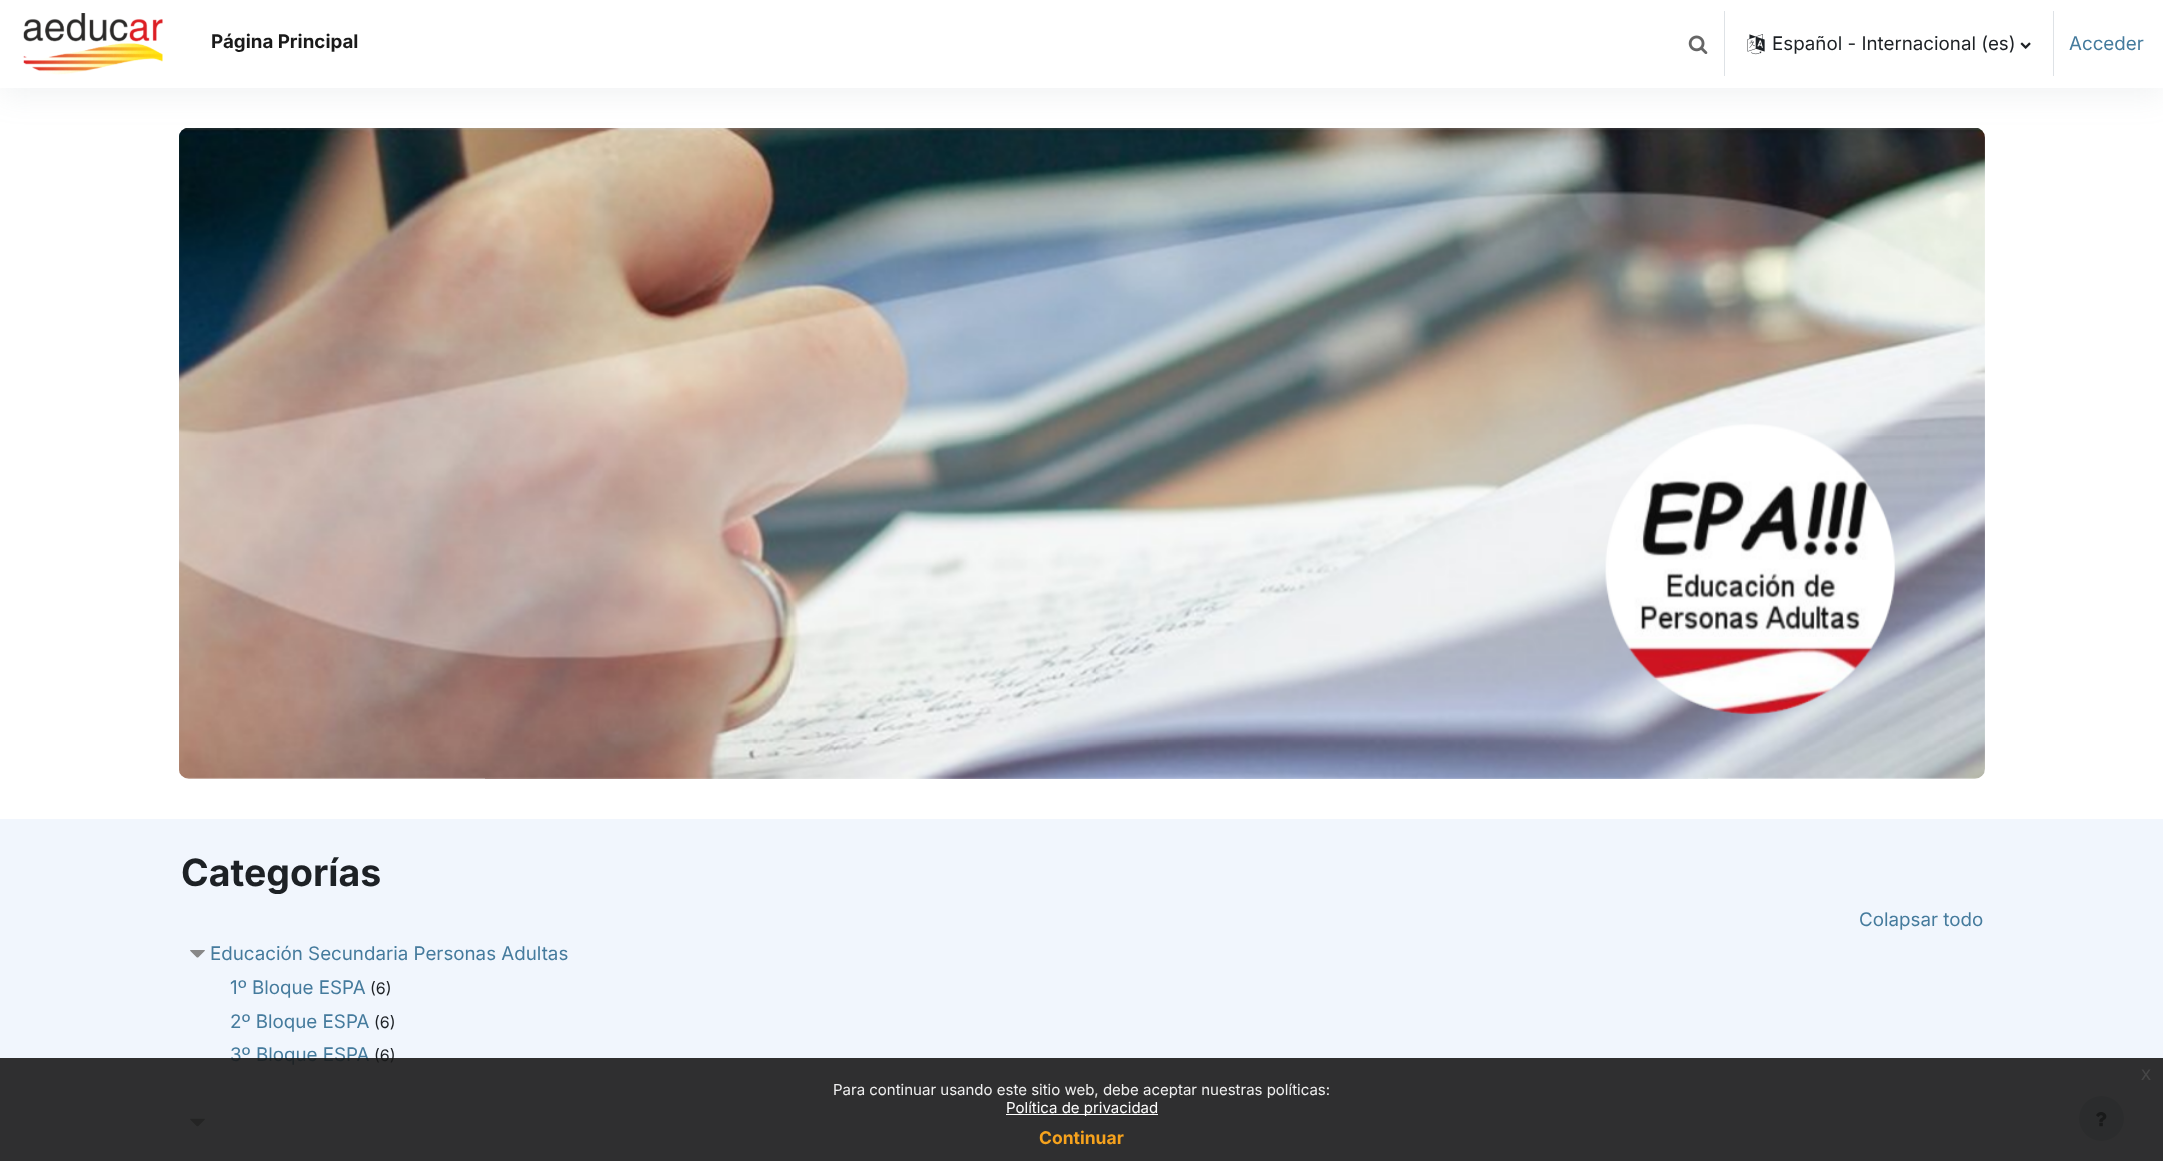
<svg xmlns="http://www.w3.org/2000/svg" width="2163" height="1161">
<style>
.a{font:bold 18.75px Inter;fill:#1a1a1a}
.b{font:18.75px Inter;fill:#1d2125}
.c{font:18.75px Inter;fill:#457b9d}
.d{font:bold 37.5px Inter;fill:#1d2125}
.e{font:16px Inter;fill:#1d2125}
.f{font:20px Liberation Sans;fill:#464647}
.g{font:15px Inter;fill:#efefef}
.h{font:15px Inter;fill:#fff}
.i{font:bold 17.5px Inter;fill:#f6a21d}
</style>
<rect width="100%" height="100%" fill="#fff"/>
<image href="5.png" x="179" y="128" width="1806" height="651"/>
<path fill="#8c98a421" filter="blur(15px)" d="M0 8h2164v87H0z"/>
<path fill="#fff" d="M0 0h2163v88H0z"/>
<image href="1.png" x="23" y="13" width="140" height="62"/>
<image href="2.png" x="1688" y="35" width="20" height="19"/>
<path fill="#dee2e6" d="M1724 11h1v65H1724z"/>
<image href="3.png" x="1747" y="34" width="18" height="21"/>
<image href="4.png" x="2020" y="42" width="11" height="7"/>
<path fill="#dee2e6" d="M2053 11h1v65H2053z"/>
<path fill="#f1f6fd" d="M0 819h2163v342H0z"/>
<image href="6.png" x="190" y="950" width="15" height="8"/>
<image href="7.png" x="190" y="1118" width="15" height="9"/>
<circle fill="#ced4da" cx="2101.5" cy="1118.5" r="22.5"/>
<image href="8.png" x="2096" y="1112" width="11" height="15"/>
<text class="a" x="211" y="48">Página Principal</text>
<text class="b" x="1772" y="50">Español - Internacional (es)</text>
<text class="c" x="2069" y="50">Acceder</text>
<text class="d" x="181" y="886">Categorías</text>
<text class="c" x="1859" y="926">Colapsar todo</text>
<text class="c" x="210" y="960">Educación Secundaria Personas Adultas</text>
<text class="c" x="230" y="994">1º Bloque ESPA</text>
<text class="e" x="370" y="994">(6)</text>
<text class="c" x="230" y="1028">2º Bloque ESPA</text>
<text class="e" x="374" y="1028">(6)</text>
<text class="c" x="230" y="1061">3º Bloque ESPA</text>
<text class="e" x="374" y="1061">(6)</text>
<path fill="#191919e6" d="M0 1058h2163v103H0z"/>
<text class="f" x="2141" y="1080">x</text>
<text class="g" x="833" y="1095">Para continuar usando este sitio web, debe aceptar nuestras políticas:</text>
<path fill="#fff" d="M1006 1114h152v1H1006z"/>
<text class="h" x="1006" y="1113">Política de privacidad</text>
<text class="i" x="1039" y="1144">Continuar</text>
</svg>
